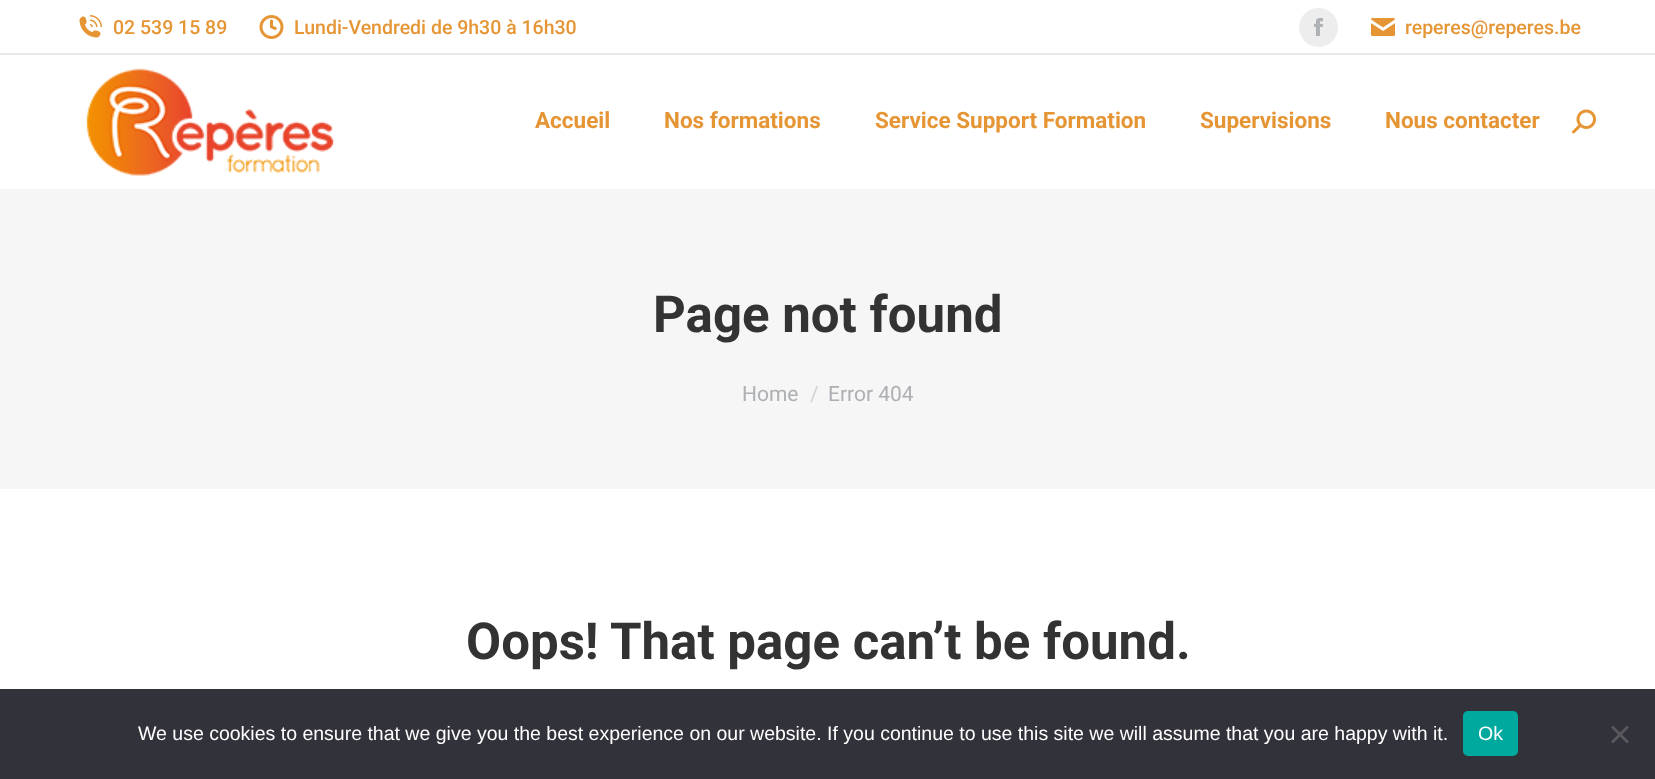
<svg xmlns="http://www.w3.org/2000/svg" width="1655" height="779">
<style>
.a{font:500 19.5px Roboto;fill:#e69535}
.b{font:bold 22.5px Roboto;fill:#e69535}
.c{font:bold 51px Roboto;fill:#333}
.d{font:21px Roboto;fill:#adafb3}
.e{font:21px Roboto;fill:#d2d3d5}
.f{font:19.5px Liberation Sans;fill:#fff}
</style>
<rect width="100%" height="100%" fill="#fff"/>
<image href="1.png" x="79" y="15" width="23" height="23"/>
<image href="2.png" x="259" y="15" width="25" height="24"/>
<circle fill="#ededed" cx="1318.5" cy="27.5" r="19.5"/>
<image href="3.png" x="1314" y="18" width="9" height="18"/>
<image href="4.png" x="1371" y="18" width="24" height="18"/>
<path fill="#e9e9e9" d="M0 53h1655v2H0z"/>
<image href="5.png" x="86" y="68" width="248" height="108"/>
<image href="6.png" x="1572" y="109" width="24" height="25"/>
<path fill="#f6f6f6" d="M0 189h1655v300H0z"/>
<path fill="#32323a" d="M0 689h1655v90H0z"/>
<rect fill="#00a99d" x="1463" y="711" width="55" height="45" rx="5"/>
<path fill="#59595d" d="M1627 725.5l2 2l-16 16l-2-2z"/>
<path fill="#59595d" d="M1611 727.5l2-2l16 16l-2 2z"/>
<text class="a" x="113" y="34">02 539 15 89</text>
<text class="a" x="294" y="34">Lundi-Vendredi de 9h30 à 16h30</text>
<text class="a" x="1405" y="34">reperes@reperes.be</text>
<text class="b" x="535" y="128">Accueil</text>
<text class="b" x="664" y="128">Nos formations</text>
<text class="b" x="875" y="128">Service Support Formation</text>
<text class="b" x="1200" y="128">Supervisions</text>
<text class="b" x="1385" y="128">Nous contacter</text>
<text class="c" x="653" y="332">Page not found</text>
<text class="d" x="742" y="401">Home</text>
<text class="e" x="810" y="401">/</text>
<text class="d" x="828" y="401">Error 404</text>
<text class="c" x="466" y="659">Oops! That page can’t be found.</text>
<text class="f" x="138" y="740">We use cookies to ensure that we give you the best experience on our website. If you continue to use this site we will assume that you are happy with it.</text>
<text class="f" x="1478" y="740">Ok</text>
</svg>
